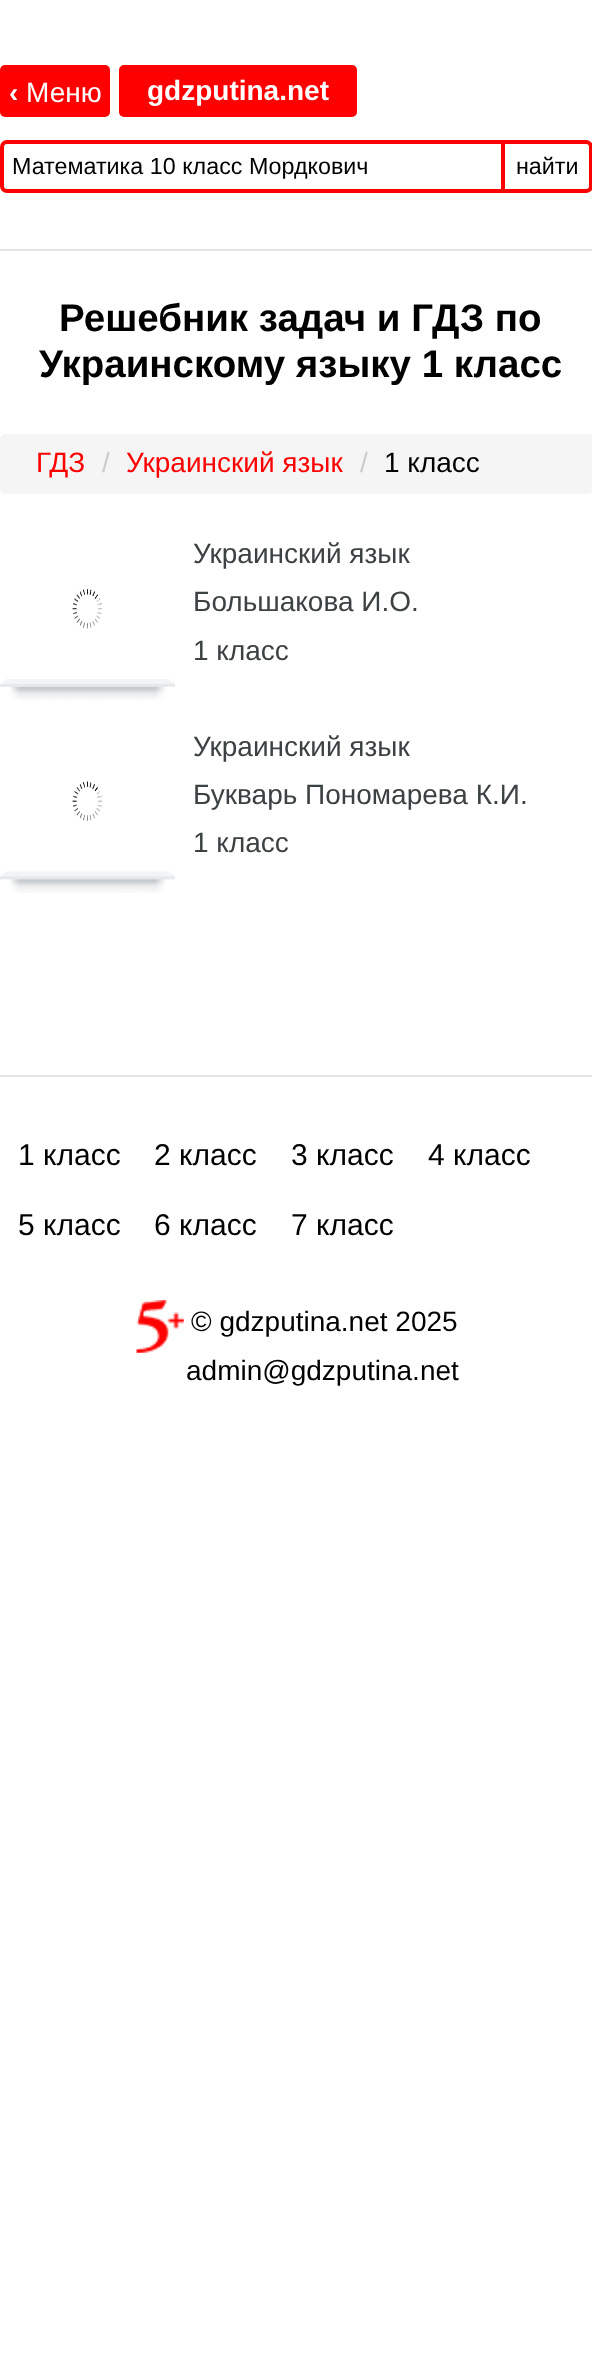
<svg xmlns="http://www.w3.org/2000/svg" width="592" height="2378">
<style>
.a{font:bold 28px Liberation Sans;fill:#fff}
.b{font:28px Liberation Sans;fill:#fff}
.c{font:23.3px Liberation Sans;fill:#000}
.d{font:bold 38.5px Liberation Sans;fill:#000}
.e{font:28px Liberation Sans;fill:#fe0000}
.f{font:28px Liberation Sans;fill:#ccc}
.g{font:28px Liberation Sans;fill:#000}
.h{font:28px Liberation Sans;fill:#3c4144}
.i{font:30px Liberation Sans;fill:#000}
</style>
<rect width="100%" height="100%" fill="#fff"/>
<path fill="#e5e5e5" d="M0 249h592v2H0z"/>
<rect fill="#fe0000" y="65" width="110" height="52" rx="5"/>
<rect fill="#fe0000" x="119" y="65" width="238" height="52" rx="5"/>
<rect fill="none" stroke="#fe0000" stroke-width="4" x="2" y="142" width="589" height="49" rx="5"/>
<path fill="#fe0000" d="M501 144h4v45H501z"/>
<rect fill="#f5f5f5" y="434" width="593" height="60" rx="5"/>
<image href="1.png" x="0" y="589" width="175" height="111"/>
<image href="2.png" x="72" y="589" width="30" height="40"/>
<image href="3.png" x="0" y="781" width="175" height="112"/>
<image href="4.png" x="72" y="781" width="30" height="40"/>
<path fill="#e5e5e5" d="M0 1075h592v2H0z"/>
<image href="5.png" x="136" y="1300" width="48" height="53"/>
<text class="a" x="9" y="102">‹</text>
<text class="b" x="26" y="102">Меню</text>
<text class="a" x="147" y="100">gdzputina.net</text>
<text class="c" x="12" y="174">Математика 10 класс Мордкович</text>
<text class="c" x="516" y="174">найти</text>
<text class="d" x="59" y="331">Решебник задач и ГДЗ по</text>
<text class="d" x="39" y="377">Украинскому языку 1 класс</text>
<text class="e" x="36" y="472">ГДЗ</text>
<text class="f" x="102" y="472">/</text>
<text class="e" x="126" y="472">Украинский язык</text>
<text class="f" x="360" y="472">/</text>
<text class="g" x="384" y="472">1 класс</text>
<text class="h" x="193" y="563">Украинский язык</text>
<text class="h" x="193" y="611">Большакова И.О.</text>
<text class="h" x="193" y="660">1 класс</text>
<text class="h" x="193" y="756">Украинский язык</text>
<text class="h" x="193" y="804">Букварь Пономарева К.И.</text>
<text class="h" x="193" y="852">1 класс</text>
<text class="i" x="18" y="1165">1 класс</text>
<text class="i" x="154" y="1165">2 класс</text>
<text class="i" x="291" y="1165">3 класс</text>
<text class="i" x="428" y="1165">4 класс</text>
<text class="i" x="18" y="1235">5 класс</text>
<text class="i" x="154" y="1235">6 класс</text>
<text class="i" x="291" y="1235">7 класс</text>
<text class="g" x="191" y="1331">© gdzputina.net 2025</text>
<text class="g" x="186" y="1380">admin@gdzputina.net</text>
</svg>
